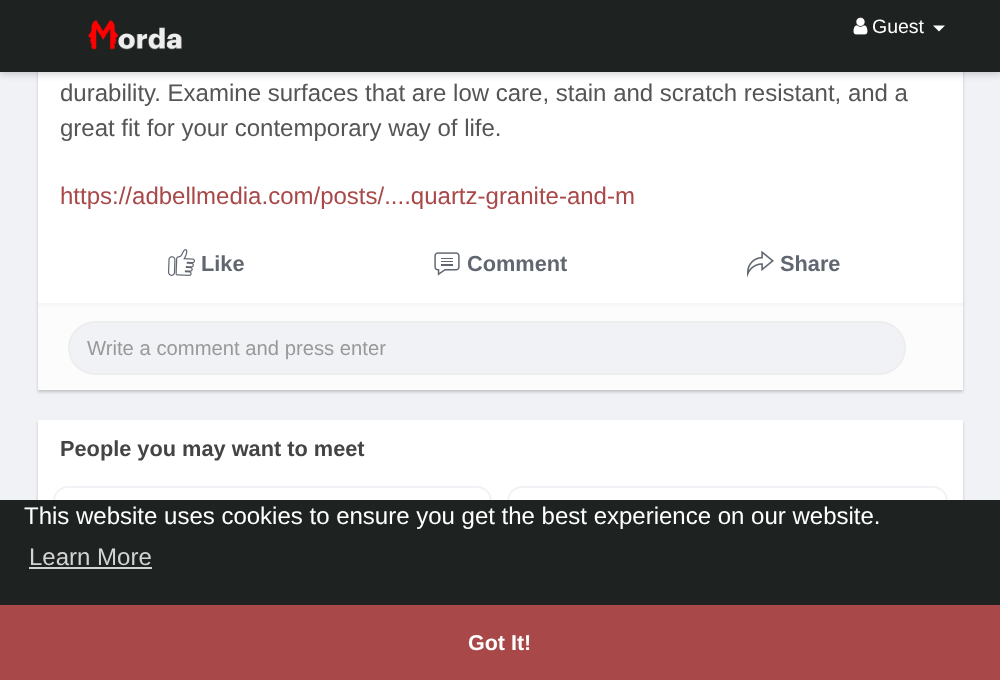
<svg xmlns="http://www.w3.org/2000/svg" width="1000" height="680">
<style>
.a{font:19.5px Liberation Sans;fill:#fff}
.b{font:24px Liberation Sans;fill:#555}
.c{font:24px Liberation Sans;fill:#a84849}
.d{font:bold 21.75px Liberation Sans;fill:#616770}
.e{font:20.25px Liberation Sans;fill:#999}
.f{font:bold 21.75px Liberation Sans;fill:#444}
.g{font:24px Liberation Sans;fill:#fff}
.h{font:24px Liberation Sans;fill:#d2d3d3}
.i{font:bold 21.5px Liberation Sans;fill:#fff}
</style>
<rect width="100%" height="100%" fill="#f0f2f5"/>
<path fill="#00000033" filter="blur(1.5px)" d="M38 -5h925v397H38z"/>
<path fill="#fff" d="M38 72h925v231H38z"/>
<path fill="#00000026" filter="blur(3px)" d="M0 3h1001v72H0z"/>
<path fill="#1e2321" d="M0 0h1000v72H0z"/>
<image href="1.png" x="88" y="19" width="94" height="31"/>
<image href="2.png" x="853" y="17" width="15" height="18"/>
<path fill="#fff" d="M933 25.5h12l-6 6z"/>
<image href="3.png" x="168" y="249" width="27" height="27"/>
<image href="4.png" x="434" y="252" width="26" height="24"/>
<image href="5.png" x="747" y="251" width="27" height="27"/>
<path fill="#fcfcfc" d="M38 307h925v83H38z"/>
<path fill="#f6f6f6" d="M38 303h925v2H38z"/>
<path fill="#f9f9f9" d="M38 305h925v2H38z"/>
<rect fill="#f0f2f5" stroke="#ededed" stroke-width="2" x="69" y="322" width="836" height="52" rx="26"/>
<path fill="#00000033" filter="blur(1.5px)" d="M38 422h925v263H38z"/>
<path fill="#fff" d="M38 420h925v80H38z"/>
<rect fill="none" stroke="#f0f2f5" stroke-width="2" x="54" y="487" width="437" height="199" rx="14"/>
<rect fill="none" stroke="#f0f2f5" stroke-width="2" x="508" y="487" width="439" height="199" rx="14"/>
<path fill="#1e2321" d="M0 500h1000v105H0z"/>
<path fill="#d2d3d3" d="M29 567h123v2H29z"/>
<path fill="#a84849" d="M0 605h1000v75H0z"/>
<text class="a" x="872" y="33">Guest</text>
<text class="b" x="60" y="101">durability. Examine surfaces that are low care, stain and scratch resistant, and a</text>
<text class="b" x="60" y="136">great fit for your contemporary way of life.</text>
<text class="c" x="60" y="204">https://adbellmedia.com/posts/....quartz-granite-and-m</text>
<text class="d" x="201" y="271">Like</text>
<text class="d" x="467" y="271">Comment</text>
<text class="d" x="780" y="271">Share</text>
<text class="e" x="87" y="355">Write a comment and press enter</text>
<text class="f" x="60" y="456">People you may want to meet</text>
<text class="g" x="24" y="524">This website uses cookies to ensure you get the best experience on our website.</text>
<text class="h" x="29" y="565">Learn More</text>
<text class="i" x="468" y="650">Got It!</text>
</svg>
